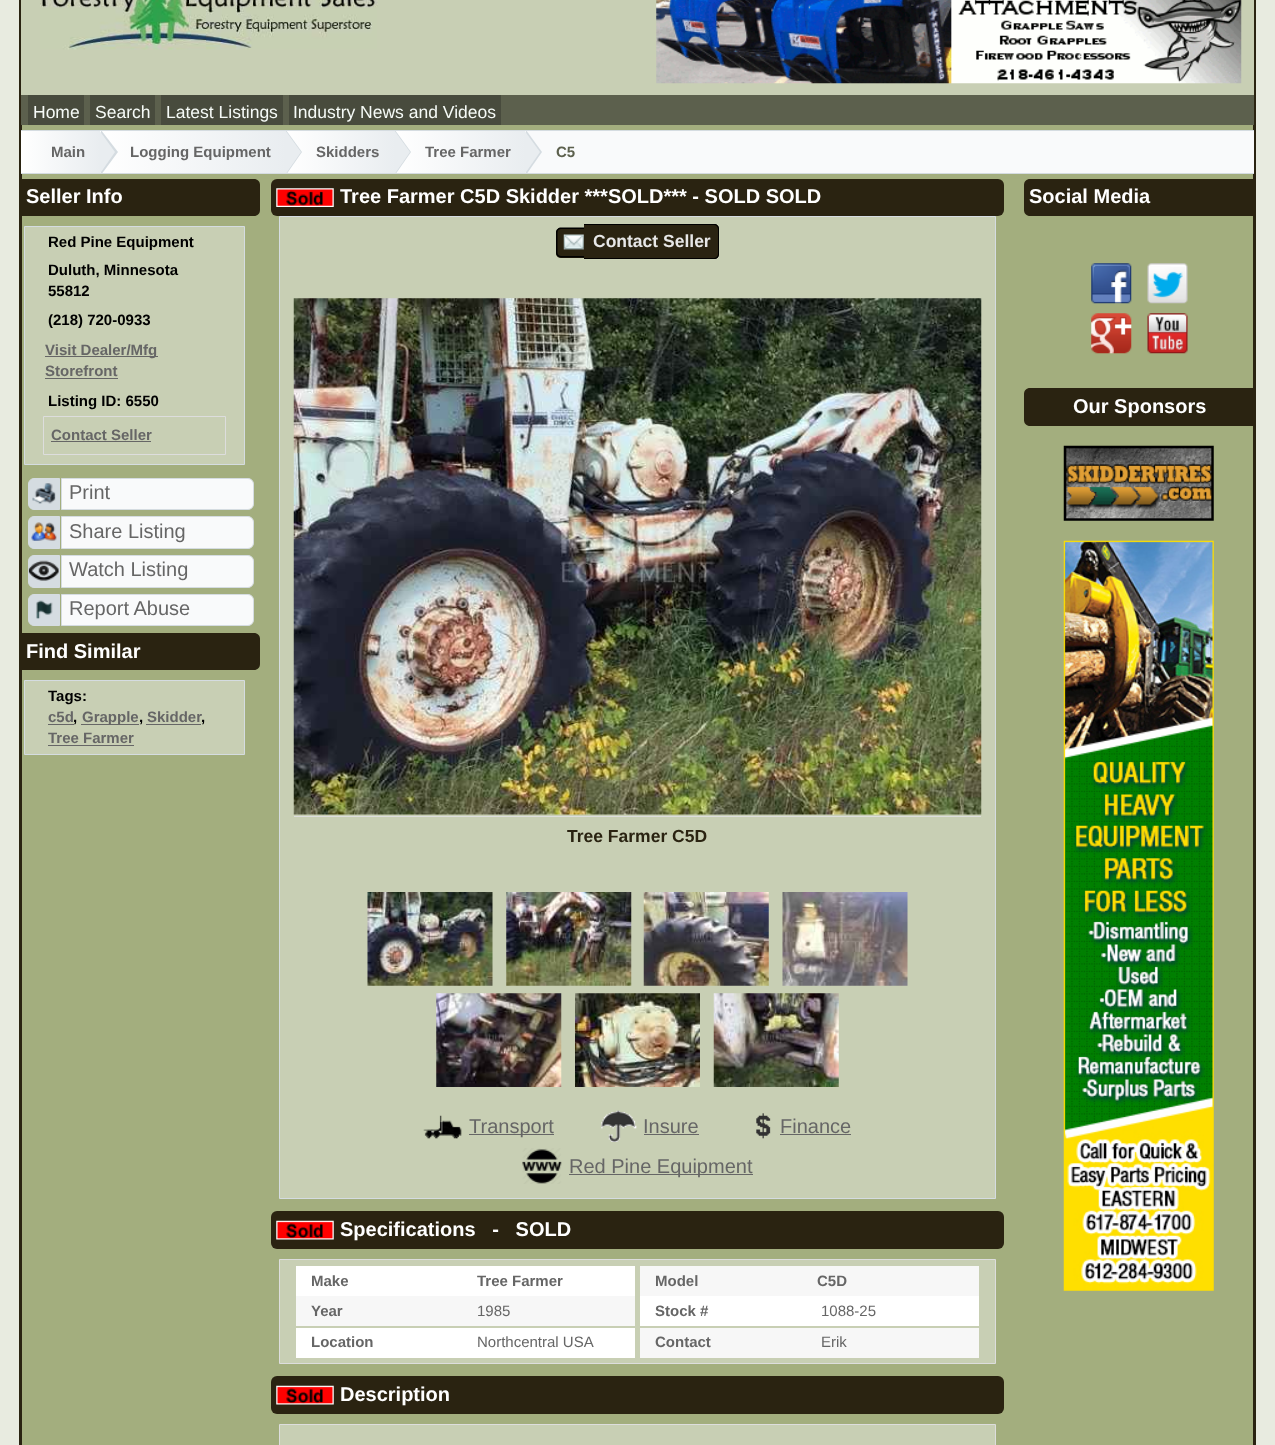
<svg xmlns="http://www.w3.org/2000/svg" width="1275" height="1445">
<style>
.a{font:17.5px Liberation Sans;fill:#f6fbf7}
.b{font:bold 15px Liberation Sans;fill:#666}
.c{font:bold 15px Liberation Sans;fill:#5c604d}
.d{font:bold 20px Liberation Sans;fill:#fff}
.e{font:bold 15px Liberation Sans;fill:#000}
.f{font:20px Liberation Sans;fill:#666}
.g{font:bold 17.5px Liberation Sans;fill:#e7e7e7}
.h{font:bold 17.5px Liberation Sans;fill:#2a2311}
.i{font:15px Liberation Sans;fill:#666}
</style>
<defs>
<linearGradient id="g1" gradientUnits="userSpaceOnUse" x1="21" y1="152" x2="100" y2="152"><stop offset="0" stop-color="#fff"/><stop offset="1" stop-color="#e9edf0"/></linearGradient>
<linearGradient id="g2" gradientUnits="userSpaceOnUse" x1="100" y1="152" x2="286" y2="152"><stop offset="0" stop-color="#fff"/><stop offset="1" stop-color="#e9edf0"/></linearGradient>
<clipPath id="clip1"><path d="M21 131h1233v42H21z"/></clipPath>
<linearGradient id="g3" gradientUnits="userSpaceOnUse" x1="286" y1="152" x2="395" y2="152"><stop offset="0" stop-color="#fff"/><stop offset="1" stop-color="#e9edf0"/></linearGradient>
<linearGradient id="g4" gradientUnits="userSpaceOnUse" x1="395" y1="152" x2="525" y2="152"><stop offset="0" stop-color="#fff"/><stop offset="1" stop-color="#e9edf0"/></linearGradient>
</defs>
<rect width="100%" height="100%" fill="#e8ebe0"/>
<path fill="#a3ae7e" d="M22 125h1231v1320H22z"/>
<path fill="none" stroke="#2a2311" stroke-width="3" d="M20.5 -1.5h1234v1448H20.5z"/>
<path fill="#c8cfb4" d="M21 0h1233v95H21z"/>
<image href="1.png" x="40" y="0" width="338" height="50"/>
<image href="2.png" x="656" y="0" width="586" height="84"/>
<path fill="#5c604d" d="M21 95h1233v30H21z"/>
<path fill="#484b3d" d="M28 95h56v30H28z"/>
<path fill="#484b3d" d="M90 95h65v30H90z"/>
<path fill="#484b3d" d="M161 95h122v30H161z"/>
<path fill="#484b3d" d="M289 95h212v30H289z"/>
<path fill="#f9fafb" d="M525 131h729v42H525z"/>
<path fill="#d5dce1" d="M21 130h1233v1H21z"/>
<path fill="#d5dce1" d="M21 173h1233v1H21z"/>
<path fill="url(#g1)" d="M21 131h79v42H21z"/>
<path fill="url(#g2)" d="M100 131h186v42H100z"/>
<g clip-path="url(#clip1)">
<path fill="#d5dce1" d="M101 175v-45l17 22z"/>
<path fill="#e9edf0" d="M99 175v-45l16 22z"/>
</g>
<path fill="url(#g3)" d="M286 131h109v42H286z"/>
<g clip-path="url(#clip1)">
<path fill="#d5dce1" d="M286 175v-45l16 22z"/>
<path fill="#e9edf0" d="M285 175v-45l16 22z"/>
</g>
<path fill="url(#g4)" d="M395 131h130v42H395z"/>
<g clip-path="url(#clip1)">
<path fill="#d5dce1" d="M395 175v-45l16 22z"/>
<path fill="#e9edf0" d="M394 175v-45l16 22z"/>
<path fill="#d5dce1" d="M526 175v-45l16 22z"/>
<path fill="#e9edf0" d="M524 175v-45l16 22z"/>
</g>
<path fill="#2a2311" d="M21 179h233c3.5 0 6 2.5 6 6v25c0 3.5-2.5 6-6 6h-233z"/>
<path fill="#c8cfb4" stroke="#d5dce1" d="M24.5 226.5h220v238H24.5z"/>
<path fill="#666" d="M45 356h113v1H45z"/>
<path fill="#666" d="M45 378h73v1H45z"/>
<path fill="none" stroke="#ddd" d="M43.5 416.5h182v38H43.5z"/>
<path fill="#666" d="M51 441h100v1H51z"/>
<path fill="#d5dce1" stroke="#d5dce1" d="M34 478.5h25.5v31h-25.5c-3 0-5.5-2.5-5.5-5.5v-20c0-3 2.5-5.5 5.5-5.5z"/>
<image href="3.png" x="32" y="483" width="24" height="21"/>
<path fill="#f9fafb" stroke="#d5dce1" d="M61.5 478.5h186.5c3 0 5.5 2.5 5.5 5.5v20c0 3-2.5 5.5-5.5 5.5h-186.5z"/>
<path fill="#d5dce1" stroke="#d5dce1" d="M34 516.5h25.5v32h-25.5c-3 0-5.5-2.5-5.5-5.5v-21c0-3 2.5-5.5 5.5-5.5z"/>
<image href="4.png" x="31" y="522" width="26" height="19"/>
<path fill="#f9fafb" stroke="#d5dce1" d="M61.5 516.5h186.5c3 0 5.5 2.5 5.5 5.5v21c0 3-2.5 5.5-5.5 5.5h-186.5z"/>
<path fill="#d5dce1" stroke="#d5dce1" d="M34 555.5h25.5v32h-25.5c-3 0-5.5-2.5-5.5-5.5v-21c0-3 2.5-5.5 5.5-5.5z"/>
<image href="5.png" x="28" y="560" width="31" height="21"/>
<path fill="#f9fafb" stroke="#d5dce1" d="M61.5 555.5h186.5c3 0 5.5 2.5 5.5 5.5v21c0 3-2.5 5.5-5.5 5.5h-186.5z"/>
<path fill="#d5dce1" stroke="#d5dce1" d="M34 594.5h25.5v31h-25.5c-3 0-5.5-2.5-5.5-5.5v-20c0-3 2.5-5.5 5.5-5.5z"/>
<image href="6.png" x="36" y="600" width="17" height="19"/>
<path fill="#f9fafb" stroke="#d5dce1" d="M61.5 594.5h186.5c3 0 5.5 2.5 5.5 5.5v20c0 3-2.5 5.5-5.5 5.5h-186.5z"/>
<path fill="#2a2311" d="M21 633h233c3.5 0 6 2.5 6 6v25c0 3.5-2.5 6-6 6h-233z"/>
<path fill="#c8cfb4" stroke="#d5dce1" d="M24.5 680.5h220v74H24.5z"/>
<path fill="#666" d="M48 724h26v1H48z"/>
<path fill="#666" d="M81 724h58v1H81z"/>
<path fill="#666" d="M146 724h55v1H146z"/>
<path fill="#666" d="M48 745h86v1H48z"/>
<rect fill="#2a2311" x="271" y="179" width="733" height="37" rx="6"/>
<image href="7.png" x="276" y="188" width="58" height="19"/>
<path fill="#c8cfb4" stroke="#d5dce1" d="M279.5 216.5h716v982H279.5z"/>
<path fill="#2a2311" d="M561 228h23v30h-23c-3 0-5-2-5-5v-20c0-3 2-5 5-5z"/>
<path fill="#000" fill-rule="evenodd" d="M561 227.5h23v30h-23c-2.5 0-5-2-5-5v-20c0-3 2.5-5 5-5zm0 1.5h23v27h-23c-2 0-3.5-1.5-3.5-3.5v-20c0-2 1.5-3.5 3.5-3.5z"/>
<image href="8.png" x="563" y="234" width="21" height="16"/>
<path fill="#2a2311" d="M584 224h130c3 0 5 2 5 5v25c0 3-2 5-5 5h-130z"/>
<path fill="#000" fill-rule="evenodd" d="M584 224h130c3 0 5 2 5 5v25c0 3-2 5-5 5h-130zm0 1h130c2 0 4 2 4 4v25c0 2-2 4-4 4h-130z"/>
<image href="9.png" x="293" y="298" width="689" height="517"/>
<path fill="#ddd" d="M294 816h687v1H294z"/>
<image href="10.png" x="367" y="892" width="126" height="94"/>
<image href="11.png" x="506" y="892" width="126" height="94"/>
<image href="12.png" x="643" y="892" width="126" height="94"/>
<image href="13.png" x="782" y="892" width="126" height="94"/>
<image href="14.png" x="436" y="993" width="126" height="94"/>
<image href="15.png" x="575" y="993" width="125" height="94"/>
<image href="16.png" x="713" y="993" width="126" height="94"/>
<image href="17.png" x="423" y="1115" width="39" height="24"/>
<path fill="#666" d="M469 1134h85v1H469z"/>
<image href="18.png" x="601" y="1110" width="36" height="32"/>
<path fill="#666" d="M644 1134h55v1H644z"/>
<image href="19.png" x="756" y="1113" width="15" height="26"/>
<path fill="#666" d="M780 1134h71v1H780z"/>
<image href="20.png" x="522" y="1148" width="40" height="36"/>
<path fill="#666" d="M569 1174h184v1H569z"/>
<rect fill="#2a2311" x="271" y="1211" width="733" height="38" rx="6"/>
<image href="21.png" x="276" y="1220" width="58" height="20"/>
<path fill="#c8cfb4" stroke="#ddd" d="M279.5 1259.5h716v104H279.5z"/>
<path fill="#fff" d="M296 1266h339v30H296z"/>
<path fill="#f7f7f7" d="M640 1266h339v30H640z"/>
<path fill="#f7f7f7" d="M296 1296h339v30H296z"/>
<path fill="#fff" d="M640 1296h339v30H640z"/>
<path fill="#fff" d="M296 1328h339v30H296z"/>
<path fill="#f7f7f7" d="M640 1328h339v30H640z"/>
<rect fill="#2a2311" x="271" y="1376" width="733" height="38" rx="6"/>
<image href="21.png" x="276" y="1385" width="58" height="20"/>
<path fill="#c8cfb4" stroke="#ddd" d="M279.5 1424.5h716v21H279.5z"/>
<path fill="#2a2311" d="M1030 179h225v37h-225c-3.5 0-6-2.5-6-6v-25c0-3.5 2.5-6 6-6z"/>
<image href="22.png" x="1091" y="263" width="41" height="41"/>
<image href="23.png" x="1147" y="263" width="41" height="41"/>
<image href="24.png" x="1091" y="313" width="41" height="41"/>
<image href="25.png" x="1147" y="313" width="41" height="41"/>
<path fill="#2a2311" d="M1030 388h225v38h-225c-3.5 0-6-2.5-6-6v-26c0-3.5 2.5-6 6-6z"/>
<image href="26.png" x="1063" y="445" width="151" height="76"/>
<image href="27.png" x="1063" y="540" width="151" height="751"/>
<text class="a" x="33" y="118">Home</text>
<text class="a" x="95" y="118">Search</text>
<text class="a" x="166" y="118">Latest Listings</text>
<text class="a" x="293" y="118">Industry News and Videos</text>
<text class="b" x="51" y="157">Main</text>
<text class="b" x="130" y="157">Logging Equipment</text>
<text class="b" x="316" y="157">Skidders</text>
<text class="b" x="425" y="157">Tree Farmer</text>
<text class="c" x="556" y="157">C5</text>
<text class="d" x="26" y="203">Seller Info</text>
<text class="e" x="48" y="247">Red Pine Equipment</text>
<text class="e" x="48" y="275">Duluth, Minnesota</text>
<text class="e" x="48" y="296">55812</text>
<text class="e" x="48" y="325">(218) 720-0933</text>
<text class="b" x="45" y="355">Visit Dealer/Mfg</text>
<text class="b" x="45" y="376">Storefront</text>
<text class="e" x="48" y="406">Listing ID: 6550</text>
<text class="b" x="51" y="440">Contact Seller</text>
<text class="f" x="69" y="499">Print</text>
<text class="f" x="69" y="538">Share Listing</text>
<text class="f" x="69" y="576">Watch Listing</text>
<text class="f" x="69" y="615">Report Abuse</text>
<text class="d" x="26" y="658">Find Similar</text>
<text class="e" x="48" y="701">Tags:</text>
<text class="b" x="48" y="722">c5d</text>
<text class="e" x="73" y="722">,</text>
<text class="b" x="82" y="722">Grapple</text>
<text class="e" x="139" y="722">,</text>
<text class="b" x="147" y="722">Skidder</text>
<text class="e" x="201" y="722">,</text>
<text class="b" x="48" y="743">Tree Farmer</text>
<text class="d" x="340" y="203">Tree Farmer C5D Skidder ***SOLD*** - SOLD SOLD</text>
<text class="g" x="593" y="247">Contact Seller</text>
<text class="h" x="567" y="842">Tree Farmer C5D</text>
<text class="f" x="469" y="1133">Transport</text>
<text class="f" x="643" y="1133">Insure</text>
<text class="f" x="780" y="1133">Finance</text>
<text class="f" x="569" y="1173">Red Pine Equipment</text>
<text class="d" xml:space="preserve" x="340" y="1236">Specifications   -   SOLD</text>
<text class="b" x="311" y="1286">Make</text>
<text class="b" x="477" y="1286">Tree Farmer</text>
<text class="b" x="655" y="1286">Model</text>
<text class="b" x="817" y="1286">C5D</text>
<text class="b" x="311" y="1316">Year</text>
<text class="i" x="477" y="1316">1985</text>
<text class="b" x="655" y="1316">Stock #</text>
<text class="i" x="821" y="1316">1088-25</text>
<text class="b" x="311" y="1347">Location</text>
<text class="i" x="477" y="1347">Northcentral USA</text>
<text class="b" x="655" y="1347">Contact</text>
<text class="i" x="821" y="1347">Erik</text>
<text class="d" x="340" y="1401">Description</text>
<text class="d" x="1029" y="203">Social Media</text>
<text class="d" x="1073" y="413">Our Sponsors</text>
</svg>
